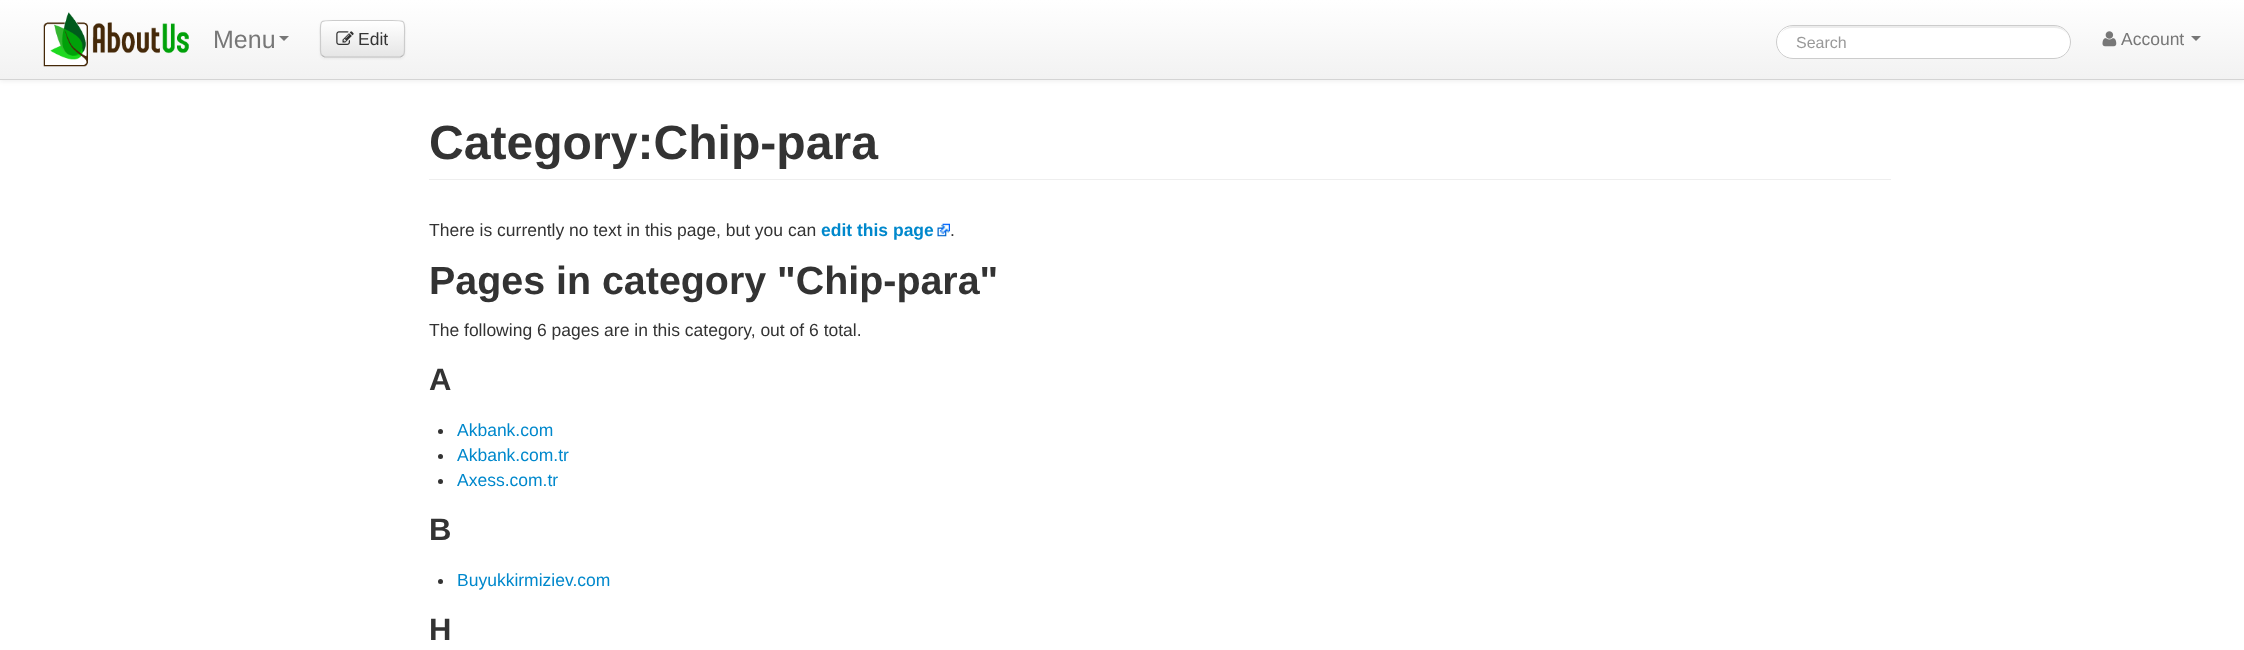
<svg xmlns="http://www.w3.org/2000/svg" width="2244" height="650">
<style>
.a{font:25px Liberation Sans;fill:#777}
.b{font:17.5px Liberation Sans;fill:#333}
.c{font:16px Liberation Sans;fill:#999}
.d{font:17.5px Liberation Sans;fill:#777}
.e{font:bold 48.1px Liberation Sans;fill:#333}
.f{font:bold 17.5px Liberation Sans;fill:#08c}
.g{font:bold 39.4px Liberation Sans;fill:#333}
.h{font:bold 31px Liberation Sans;fill:#333}
.i{font:17.5px Liberation Sans;fill:#08c}
</style>
<defs>
<linearGradient id="g1" gradientUnits="userSpaceOnUse" x1="1123" y1="0" x2="1123" y2="79"><stop offset="0" stop-color="#fff"/><stop offset="1" stop-color="#f2f2f2"/></linearGradient>
<clipPath id="clip1"><rect x="320" y="20" width="85" height="38" rx="5"/></clipPath>
<linearGradient id="g2" gradientUnits="userSpaceOnUse" x1="363" y1="21" x2="363" y2="56"><stop offset="0" stop-color="#fff"/><stop offset="1" stop-color="#e6e6e6"/></linearGradient>
</defs>
<rect width="100%" height="100%" fill="#fff"/>
<path fill="#00000012" filter="blur(2.5px)" d="M0 1h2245v80H0z"/>
<path fill="url(#g1)" d="M0 0h2244v79H0z"/>
<path fill="#d4d4d4" d="M0 79h2244v1H0z"/>
<image href="1.png" x="43" y="12" width="146" height="55"/>
<path fill="#777" d="M279 36h10l-5 5z"/>
<rect fill="#0000000d" filter="blur(1px)" x="320" y="21" width="85" height="38" rx="5"/>
<rect fill="#f5f5f5" x="320" y="20" width="85" height="38" rx="5"/>
<g clip-path="url(#clip1)">
<path fill="url(#g2)" d="M320 21h85v35H320z"/>
</g>
<path fill="none" stroke="#b3b3b3" stroke-width="1.2" d="M403 55.5l-2.5 1.5h-76l-2.5-1.5"/>
<path fill="none" stroke="#ccc" stroke-width="1.2" d="M322 55.5c-2-2-1.5-5-1.5-7.5v-9c0-20-3-18.5 17-18.5h50c20 0 17-1.5 17 18.5v9c0 2.5 .5 5.5-1.5 7.5"/>
<image href="2.png" x="336" y="31" width="18" height="14"/>
<rect fill="#fff" x="1776" y="25" width="295" height="34" rx="17"/>
<path fill="#ececec" d="M1793 28h261c9 0 16 6 16 14c0-8-7-16-16-16h-260c-9 0-16 8-16 16c0-8 6-14 15-14z"/>
<rect fill="none" stroke="#ccc" x="1776.5" y="25.5" width="294" height="33" rx="16.5"/>
<image href="3.png" x="2102" y="31" width="15" height="16"/>
<path fill="#777" d="M2191 36h10l-5 5z"/>
<path fill="#eee" d="M429 179h1462v1H429z"/>
<image href="4.png" x="937" y="223" width="13" height="14"/>
<circle fill="#333" cx="440.5" cy="431.5" r="2.5"/>
<circle fill="#333" cx="440.5" cy="456.5" r="2.5"/>
<circle fill="#333" cx="440.5" cy="481.5" r="2.5"/>
<circle fill="#333" cx="440.5" cy="581.5" r="2.5"/>
<text class="a" x="213" y="48">Menu</text>
<text class="b" x="358" y="45">Edit</text>
<text class="c" x="1796" y="48">Search</text>
<text class="d" x="2121" y="45">Account</text>
<text class="e" x="429" y="159">Category:Chip-para</text>
<text class="b" x="429" y="236">There is currently no text in this page, but you can</text>
<text class="f" x="821" y="236">edit this page</text>
<text class="b" x="950" y="236">.</text>
<text class="g" x="429" y="294">Pages in category "Chip-para"</text>
<text class="b" x="429" y="336">The following 6 pages are in this category, out of 6 total.</text>
<text class="h" x="429" y="390">A</text>
<text class="i" x="457" y="436">Akbank.com</text>
<text class="i" x="457" y="461">Akbank.com.tr</text>
<text class="i" x="457" y="486">Axess.com.tr</text>
<text class="h" x="429" y="540">B</text>
<text class="i" x="457" y="586">Buyukkirmiziev.com</text>
<text class="h" x="429" y="640">H</text>
</svg>
